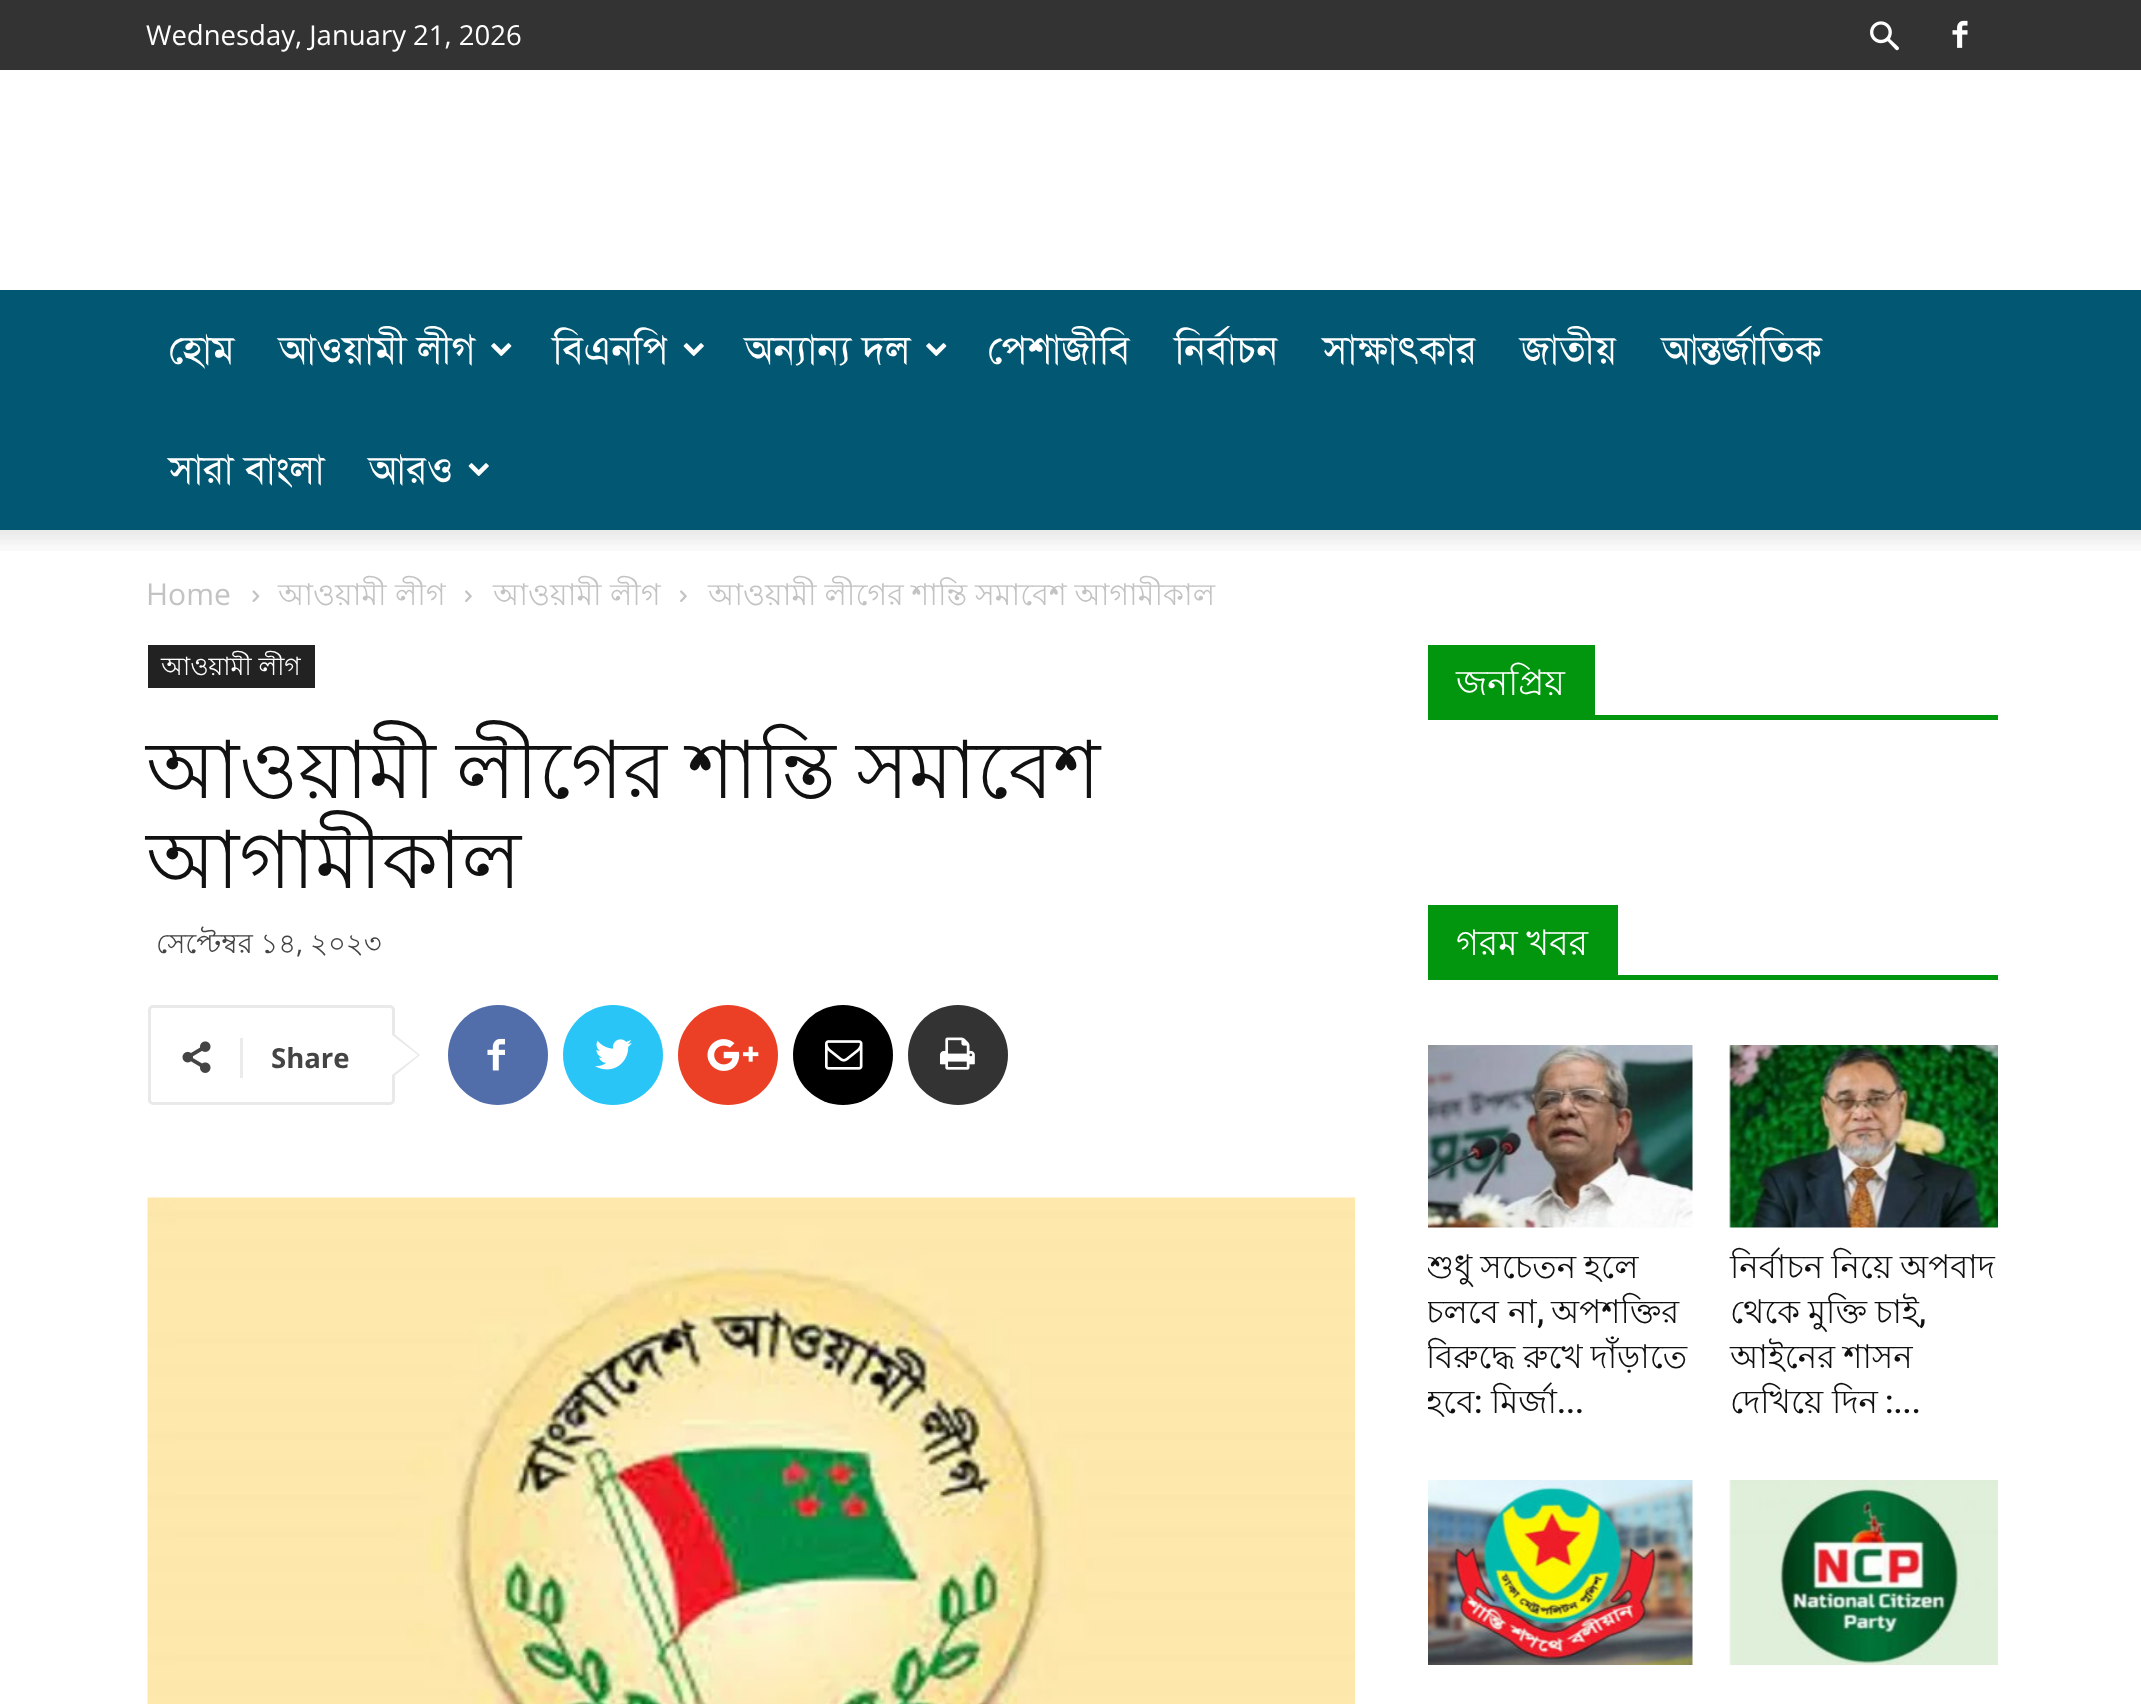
<svg xmlns="http://www.w3.org/2000/svg" width="2141" height="1704">
<style>
.a{font:27.5px Open Sans;fill:#fff}
.b{font:40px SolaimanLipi;fill:#fff}
.c{font:30px Open Sans;fill:#c3c3c3}
.d{font:30px Lohit Bengali;fill:#c3c3c3}
.e{font:25px Lohit Bengali;fill:#fff}
.f{font:80px Lohit Bengali;fill:#111}
.g{font:27.5px Lohit Bengali;fill:#444}
.h{font:27.5px Open Sans;fill:#444}
.i{font:bold 27.5px Open Sans;fill:#444}
.j{font:35px Lohit Bengali;fill:#fff}
.k{font:32.5px Lohit Bengali;fill:#111}
.l{font:500 32.5px Roboto;fill:#111}
</style>
<defs>
<clipPath id="clip1"><path d="M1428 905h570v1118H1428z"/></clipPath>
</defs>
<rect width="100%" height="100%" fill="#fff"/>
<path fill="#333" d="M0 0h2141v70H0z"/>
<image href="1.png" x="1870" y="21" width="29" height="30"/>
<image href="2.png" x="1952" y="20" width="16" height="28"/>
<path fill="#025872" d="M0 290h2141v240H0z"/>
<image href="3.png" x="491" y="343" width="21" height="13"/>
<image href="4.png" x="683" y="343" width="21" height="13"/>
<image href="3.png" x="926" y="343" width="21" height="13"/>
<image href="4.png" x="468" y="463" width="21" height="13"/>
<image href="5.png" x="0" y="530" width="2141" height="21"/>
<image href="6.png" x="252" y="590" width="8" height="12"/>
<image href="7.png" x="465" y="590" width="7" height="12"/>
<image href="7.png" x="680" y="590" width="7" height="12"/>
<path fill="#222" d="M148 645h167v43H148z"/>
<rect fill="none" stroke="#e9e9e9" stroke-width="3" x="149.5" y="1006.5" width="244" height="97" rx="3.5"/>
<path fill="#e9e9e9" d="M392 1078v-46l28 23z"/>
<image href="8.png" x="182" y="1041" width="29" height="32"/>
<path fill="#ebebeb" d="M240 1038h3v40H240z"/>
<path fill="#fff" d="M392 1075v-40l26 20z"/>
<circle fill="#516eab" cx="498" cy="1055" r="50"/>
<image href="9.png" x="487" y="1038" width="18" height="33"/>
<circle fill="#29c5f6" cx="613" cy="1055" r="50"/>
<image href="10.png" x="595" y="1039" width="37" height="31"/>
<circle fill="#eb4026" cx="728" cy="1055" r="50"/>
<image href="11.png" x="707" y="1039" width="52" height="32"/>
<circle fill="#000" cx="843" cy="1055" r="50"/>
<image href="12.png" x="825" y="1040" width="38" height="30"/>
<circle fill="#333" cx="958" cy="1055" r="50"/>
<image href="13.png" x="940" y="1037" width="35" height="33"/>
<image href="14.png" x="147" y="1197" width="1208" height="507"/>
<path fill="#01960d" d="M1428 715h570v5H1428z"/>
<path fill="#01960d" d="M1428 645h167v70H1428z"/>
<path fill="#01960d" d="M1428 975h570v5H1428z"/>
<path fill="#01960d" d="M1428 905h190v70H1428z"/>
<image href="15.png" x="1428" y="1045" width="265" height="183"/>
<image href="16.png" x="1729" y="1045" width="269" height="183"/>
<image href="17.png" x="1428" y="1480" width="265" height="185"/>
<image href="18.png" x="1729" y="1480" width="269" height="185"/>
<text class="a" x="146" y="45">Wednesday, January 21, 2026</text>
<text class="b" x="169" y="363">হোম</text>
<text class="b" x="279" y="363">আওয়ামী লীগ</text>
<text class="b" x="553" y="363">বিএনপি</text>
<text class="b" x="745" y="363">অন্যান্য দল</text>
<text class="b" x="988" y="363">পেশাজীবি</text>
<text class="b" x="1175" y="363">নির্বাচন</text>
<text class="b" x="1323" y="363">সাক্ষাৎকার</text>
<text class="b" x="1521" y="363">জাতীয়</text>
<text class="b" x="1662" y="363">আন্তর্জাতিক</text>
<text class="b" x="169" y="483">সারা বাংলা</text>
<text class="b" x="369" y="483">আরও</text>
<text class="c" x="146" y="605">Home</text>
<text class="d" x="278" y="605">আওয়ামী লীগ</text>
<text class="d" x="493" y="605">আওয়ামী লীগ</text>
<text class="d" x="708" y="605" word-spacing="-0.5">আওয়ামী লীগের শান্তি সমাবেশ আগামীকাল</text>
<text class="e" x="161" y="675">আওয়ামী লীগ</text>
<text class="f" x="146" y="798" word-spacing="-2">আওয়ামী লীগের শান্তি সমাবেশ</text>
<text class="f" x="146" y="888">আগামীকাল</text>
<text class="g" x="156" y="953">সেপ্টেম্বর ১৪</text>
<text class="h" x="296" y="953">,</text>
<text class="g" x="310" y="953">২০২৩</text>
<text class="i" x="271" y="1068">Share</text>
<text class="j" x="1456" y="695">জনপ্রিয়</text>
<text class="j" x="1456" y="955" word-spacing="-1">গরম খবর</text>
<g clip-path="url(#clip1)">
<text class="k" x="1426" y="1278" word-spacing="-1">শুধু সচেতন হলে</text>
<text class="k" x="1426" y="1323">চলবে না</text>
</g>
<text class="l" x="1537" y="1323">,</text>
<text class="k" x="1551" y="1323">অপশক্তির</text>
<g clip-path="url(#clip1)">
<text class="k" x="1426" y="1368" word-spacing="-1">বিরুদ্ধে রুখে দাঁড়াতে</text>
<text class="k" x="1426" y="1413">হবে</text>
</g>
<text class="l" x="1474" y="1413">:</text>
<text class="k" x="1491" y="1413">মির্জা</text>
<text class="l" x="1557" y="1413">...</text>
<text class="k" x="1730" y="1278" word-spacing="-1">নির্বাচন নিয়ে অপবাদ</text>
<text class="k" x="1730" y="1323" word-spacing="-1">থেকে মুক্তি চাই</text>
<text class="l" x="1919" y="1323">,</text>
<text class="k" x="1730" y="1368" word-spacing="-1">আইনের শাসন</text>
<text class="k" x="1730" y="1413">দেখিয়ে দিন</text>
<text class="l" x="1885" y="1413">:...</text>
</svg>
